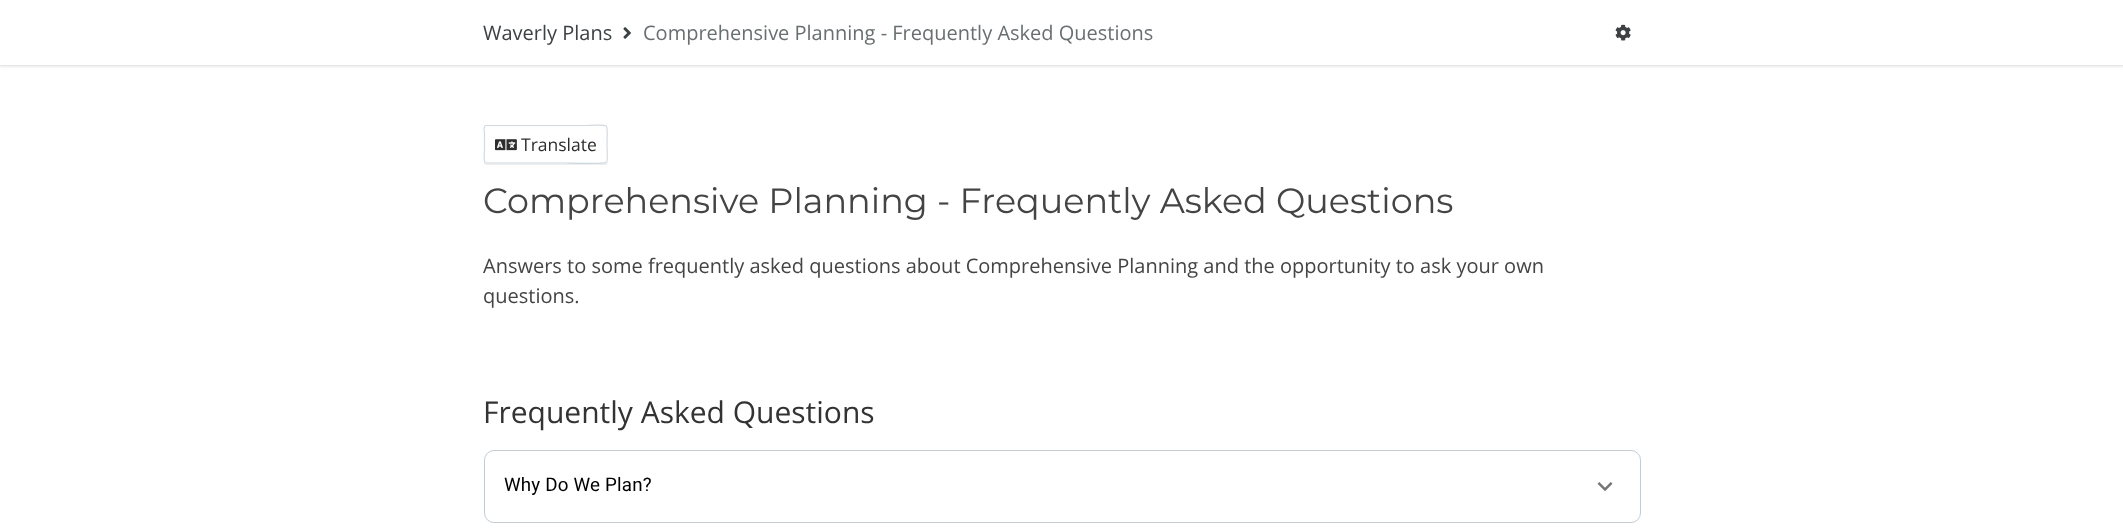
<svg xmlns="http://www.w3.org/2000/svg" width="2123" height="532">
<style>
.a{font:20px Open Sans;fill:#3c4144}
.b{font:20px Open Sans;fill:#696f71}
.c{font:17.5px Open Sans;fill:#2d2d2d}
.d{font:35px Montserrat;fill:#444}
.e{font:20px Open Sans;fill:#444}
.f{font:30px Open Sans;fill:#333}
.g{font:18.75px Roboto;letter-spacing:0.2px;fill:#000}
</style>
<defs>
<clipPath id="clip1"><path d="M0 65h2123v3H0z"/></clipPath>
<clipPath id="clip2"><path d="M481 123h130v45h-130zm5.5 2h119c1.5 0 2.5 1 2.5 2.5v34c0 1.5-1 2.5-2.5 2.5h-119c-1.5 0-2.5-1-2.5-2.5v-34c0-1.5 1-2.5 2.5-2.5z" clip-rule="evenodd"/></clipPath>
</defs>
<rect width="100%" height="100%" fill="#fff"/>
<path fill="#f2f2f2" d="M0 65v1h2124v-65v64z"/>
<g clip-path="url(#clip1)">
<path fill="#0000000d" filter="blur(1px)" d="M0 3h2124v65H0z"/>
</g>
<image href="1.png" x="623" y="27" width="8" height="12"/>
<image href="2.png" x="1615" y="24" width="16" height="17"/>
<g clip-path="url(#clip2)">
<rect fill="#5a5a5a1a" filter="blur(0.5px)" x="484" y="126" width="124" height="39" rx="2.5"/>
</g>
<path fill="none" stroke="#cbd5dd" stroke-width="1.2" d="M606.5 162.5c-2 1.5-38.5 .5-41 .5h-79.5l-1-.5"/>
<path fill="none" stroke="#d2dae1" stroke-width="1.2" d="M485 162.5c-1.5-1.5-.5-10.5-.5-12.5v-17c0-.5-1.5-7.5 1.5-7.5h99c26.5 0 22-5.5 22 19c0 2.5 1 16.5-.5 18"/>
<image href="3.png" x="495" y="139" width="22" height="12"/>
<rect fill="none" stroke="#c4cdd4" x="484.5" y="450.5" width="1156" height="72" rx="9.5"/>
<image href="4.png" x="1597" y="482" width="16" height="9"/>
<text class="a" x="483" y="40">Waverly Plans</text>
<text class="b" x="643" y="40">Comprehensive Planning - Frequently Asked Questions</text>
<text class="c" x="521" y="151">Translate</text>
<text class="d" x="483" y="213">Comprehensive Planning - Frequently Asked Questions</text>
<text class="e" x="483" y="273">Answers to some frequently asked questions about Comprehensive Planning and the opportunity to ask your own</text>
<text class="e" x="483" y="303">questions.</text>
<text class="f" x="483" y="423">Frequently Asked Questions</text>
<text class="g" x="504" y="491">Why Do We Plan?</text>
</svg>
